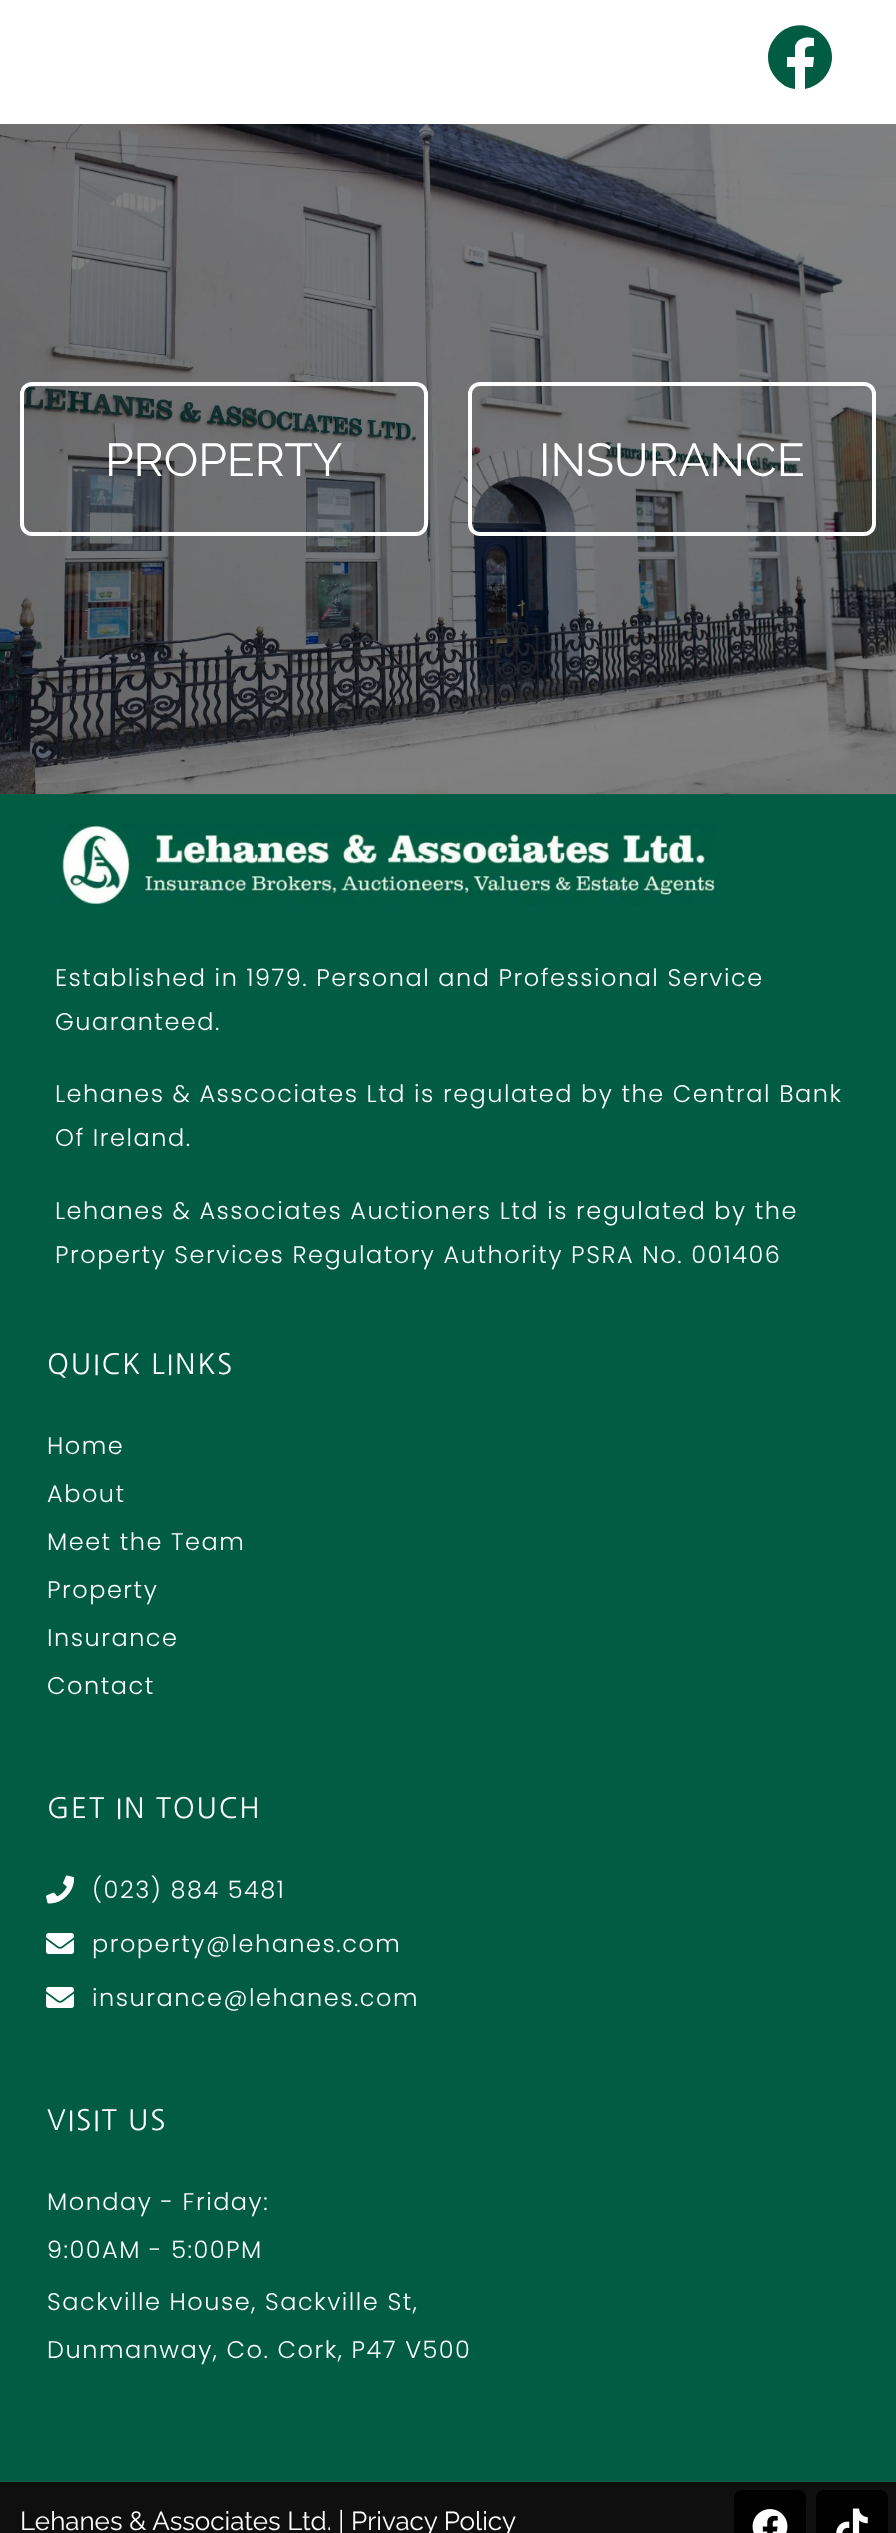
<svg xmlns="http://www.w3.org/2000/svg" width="896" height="2533">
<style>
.a{font:46px Raleway;fill:#fff}
.b{font:300 24px Poppins;letter-spacing:1.52px;fill:#fff}
.c{font:28px NanumGothic;letter-spacing:1.75px;fill:#fff}
.d{font:26px Raleway;fill:#fff}
</style>
<rect width="100%" height="100%" fill="#fff"/>
<path fill="#005c43" d="M832 57c0 16-12 29-27 32v-22h8l1-10h-9c0-9-1-11 9-11v-8c-7-1-16-1-19 8v11h-8v10h8v22c-8-1-14-5-19-11c-24-28 11-68 42-47c9 6 14 16 14 26z"/>
<image href="1.png" x="0" y="124" width="896" height="670"/>
<rect fill="none" stroke="#fff" stroke-width="4" x="22" y="384" width="404" height="150" rx="10"/>
<rect fill="none" stroke="#fff" stroke-width="4" x="470" y="384" width="404" height="150" rx="10"/>
<path fill="#005c43" d="M0 794h896v1688H0z"/>
<image href="2.png" x="61" y="824" width="656" height="82"/>
<image href="3.png" x="46" y="1875" width="29" height="29"/>
<image href="4.png" x="46" y="1933" width="28" height="21"/>
<image href="4.png" x="46" y="1987" width="28" height="21"/>
<path fill="#0f0f0f" d="M0 2482h896v51H0z"/>
<rect fill="#000" x="734" y="2490" width="72" height="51" rx="8"/>
<image href="5.png" x="752" y="2509" width="36" height="24"/>
<rect fill="#000" x="816" y="2490" width="72" height="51" rx="8"/>
<image href="6.png" x="836" y="2508" width="32" height="25"/>
<text class="a" x="105" y="476">PROPERTY</text>
<text class="a" x="539" y="476">INSURANCE</text>
<text class="b" x="55" y="986">Established in 1979. Personal and Professional Service</text>
<text class="b" x="55" y="1030">Guaranteed.</text>
<text class="b" x="55" y="1102">Lehanes &amp; Asscociates Ltd is regulated by the Central Bank</text>
<text class="b" x="55" y="1146">Of Ireland.</text>
<text class="b" x="55" y="1219">Lehanes &amp; Associates Auctioners Ltd is regulated by the</text>
<text class="b" x="55" y="1263">Property Services Regulatory Authority PSRA No. 001406</text>
<text class="c" x="47" y="1374">QUICK LINKS</text>
<text class="b" x="47" y="1454">Home</text>
<text class="b" x="47" y="1502">About</text>
<text class="b" x="47" y="1550">Meet the Team</text>
<text class="b" x="47" y="1598">Property</text>
<text class="b" x="47" y="1646">Insurance</text>
<text class="b" x="47" y="1694">Contact</text>
<text class="c" x="47" y="1818">GET IN TOUCH</text>
<text class="b" x="92" y="1898">(023) 884 5481</text>
<text class="b" x="92" y="1952">property@lehanes.com</text>
<text class="b" x="92" y="2006">insurance@lehanes.com</text>
<text class="c" x="47" y="2130">VISIT US</text>
<text class="b" x="47" y="2210">Monday - Friday:</text>
<text class="b" x="47" y="2258">9:00AM - 5:00PM</text>
<text class="b" x="47" y="2310">Sackville House, Sackville St,</text>
<text class="b" x="47" y="2358">Dunmanway, Co. Cork, P47 V500</text>
<text class="d" x="20" y="2530">Lehanes &amp; Associates Ltd. | Privacy Policy</text>
</svg>
